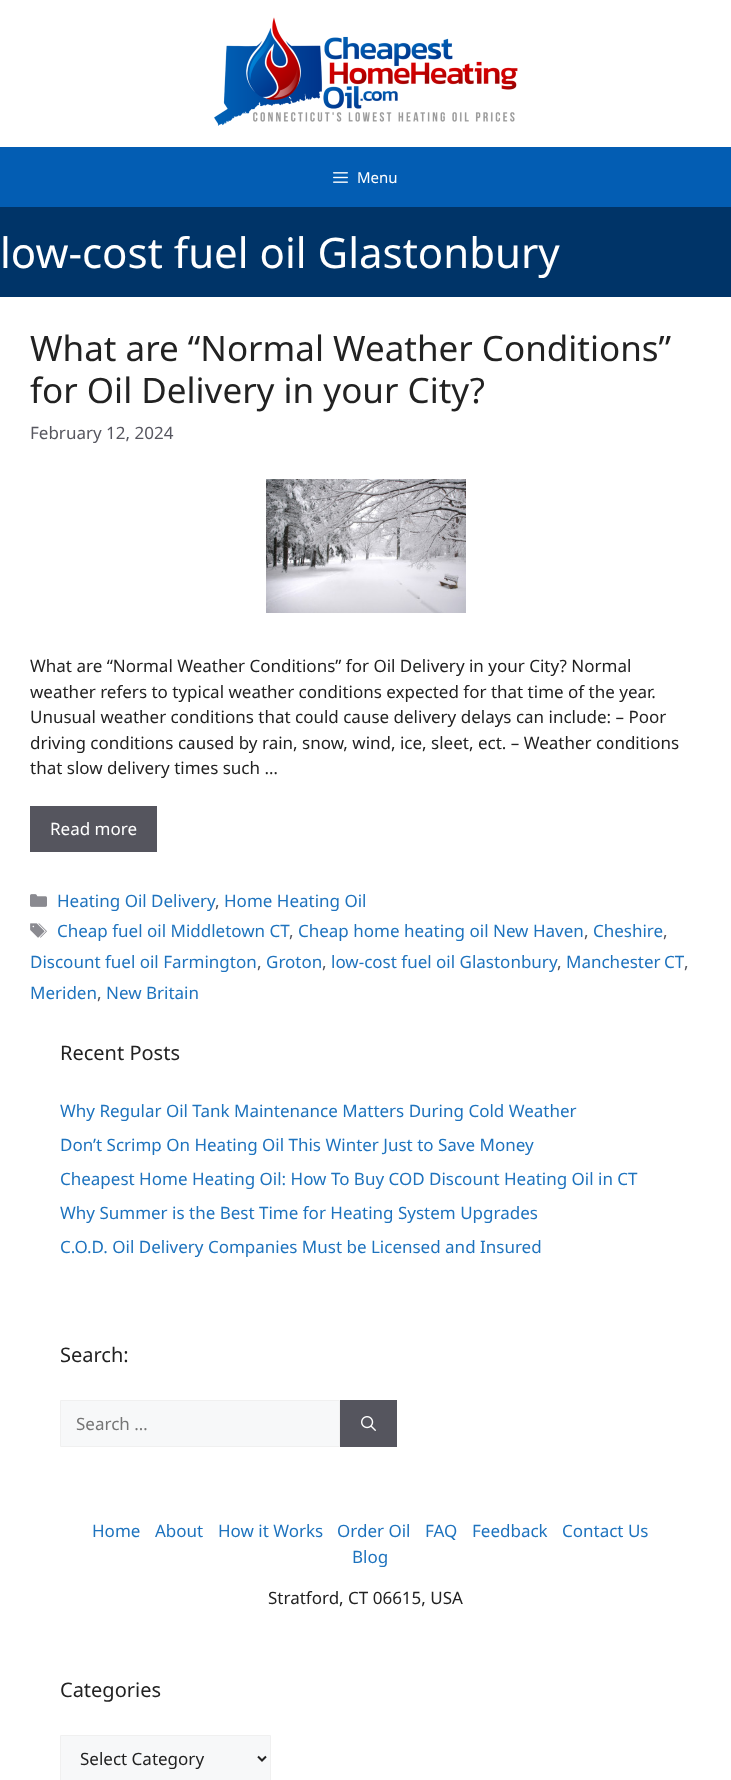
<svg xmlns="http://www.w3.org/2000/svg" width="731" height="1780">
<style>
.a{font:15px Noto Sans;fill:#fff}
.b{font:42px Noto Sans;fill:#fff}
.c{font:35px Noto Sans;fill:#222}
.d{font:17px Noto Sans;fill:#575760}
.e{font:17px Noto Sans;fill:#222}
.f{font:17px Noto Sans;fill:#fff}
.g{font:17px Noto Sans;fill:#1e73be}
.h{font:20px Noto Sans;fill:#222}
.i{font:17px Noto Sans;fill:#757575}
</style>
<rect width="100%" height="100%" fill="#035db3"/>
<path fill="#fff" d="M0 0h731v147H0z"/>
<image href="1.png" x="214" y="17" width="304" height="109"/>
<image href="2.png" x="333" y="172" width="15" height="11"/>
<path fill="#003468" d="M0 207h731v90H0z"/>
<path fill="#fff" d="M0 297h731v1483H0z"/>
<image href="3.png" x="266" y="479" width="200" height="134"/>
<path fill="#55555e" d="M30 806h127v46H30z"/>
<image href="4.png" x="30" y="894" width="17" height="13"/>
<image href="5.png" x="30" y="923" width="17" height="15"/>
<path fill="#f7f8f9" stroke="#f0f0f0" d="M60.5 1400.5h279v46H60.5z"/>
<path fill="#55555e" d="M340 1400h57v47H340z"/>
<image href="6.png" x="361" y="1416" width="15" height="15"/>
<path fill="#f7f8f9" stroke="#f0f0f0" d="M60.5 1735.5h210v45H60.5z"/>
<path fill="none" stroke="#222" stroke-width="2" d="M258 1756.5l4 4l4-4"/>
<text class="a" x="357" y="183">Menu</text>
<text class="b" x="0" y="268">low-cost fuel oil Glastonbury</text>
<text class="c" x="30" y="361">What are “Normal Weather Conditions”</text>
<text class="c" x="30" y="403">for Oil Delivery in your City?</text>
<text class="d" x="30" y="439">February 12, 2024</text>
<text class="e" x="30" y="672">What are “Normal Weather Conditions” for Oil Delivery in your City? Normal</text>
<text class="e" x="30" y="698">weather refers to typical weather conditions expected for that time of the year.</text>
<text class="e" x="30" y="723">Unusual weather conditions that could cause delivery delays can include: – Poor</text>
<text class="e" x="30" y="749">driving conditions caused by rain, snow, wind, ice, sleet, ect. – Weather conditions</text>
<text class="e" x="30" y="774">that slow delivery times such …</text>
<text class="f" x="50" y="835">Read more</text>
<text class="g" x="57" y="907">Heating Oil Delivery</text>
<text class="d" x="215" y="907">,</text>
<text class="g" x="224" y="907">Home Heating Oil</text>
<text class="g" x="57" y="937">Cheap fuel oil Middletown CT</text>
<text class="d" x="289" y="937">,</text>
<text class="g" x="298" y="937">Cheap home heating oil New Haven</text>
<text class="d" x="584" y="937">,</text>
<text class="g" x="593" y="937">Cheshire</text>
<text class="d" x="663" y="937">,</text>
<text class="g" x="30" y="968">Discount fuel oil Farmington</text>
<text class="d" x="257" y="968">,</text>
<text class="g" x="266" y="968">Groton</text>
<text class="d" x="322" y="968">,</text>
<text class="g" x="331" y="968">low-cost fuel oil Glastonbury</text>
<text class="d" x="557" y="968">,</text>
<text class="g" x="566" y="968" word-spacing="-1">Manchester CT</text>
<text class="d" x="684" y="968">,</text>
<text class="g" x="30" y="999">Meriden</text>
<text class="d" x="97" y="999">,</text>
<text class="g" x="106" y="999">New Britain</text>
<text class="h" x="60" y="1060">Recent Posts</text>
<text class="g" x="60" y="1117">Why Regular Oil Tank Maintenance Matters During Cold Weather</text>
<text class="g" x="60" y="1151">Don’t Scrimp On Heating Oil This Winter Just to Save Money</text>
<text class="g" x="60" y="1185">Cheapest Home Heating Oil: How To Buy COD Discount Heating Oil in CT</text>
<text class="g" x="60" y="1219">Why Summer is the Best Time for Heating System Upgrades</text>
<text class="g" x="60" y="1253">C.O.D. Oil Delivery Companies Must be Licensed and Insured</text>
<text class="h" x="60" y="1362">Search:</text>
<text class="i" x="76" y="1430">Search …</text>
<text class="g" x="92" y="1537">Home</text>
<text class="g" x="155" y="1537">About</text>
<text class="g" x="218" y="1537">How it Works</text>
<text class="g" x="337" y="1537">Order Oil</text>
<text class="g" x="425" y="1537">FAQ</text>
<text class="g" x="472" y="1537">Feedback</text>
<text class="g" x="562" y="1537">Contact Us</text>
<text class="g" x="352" y="1563">Blog</text>
<text class="e" x="268" y="1604">Stratford, CT 06615, USA</text>
<text class="h" x="60" y="1697">Categories</text>
<text class="e" x="80" y="1765">Select Category</text>
</svg>
